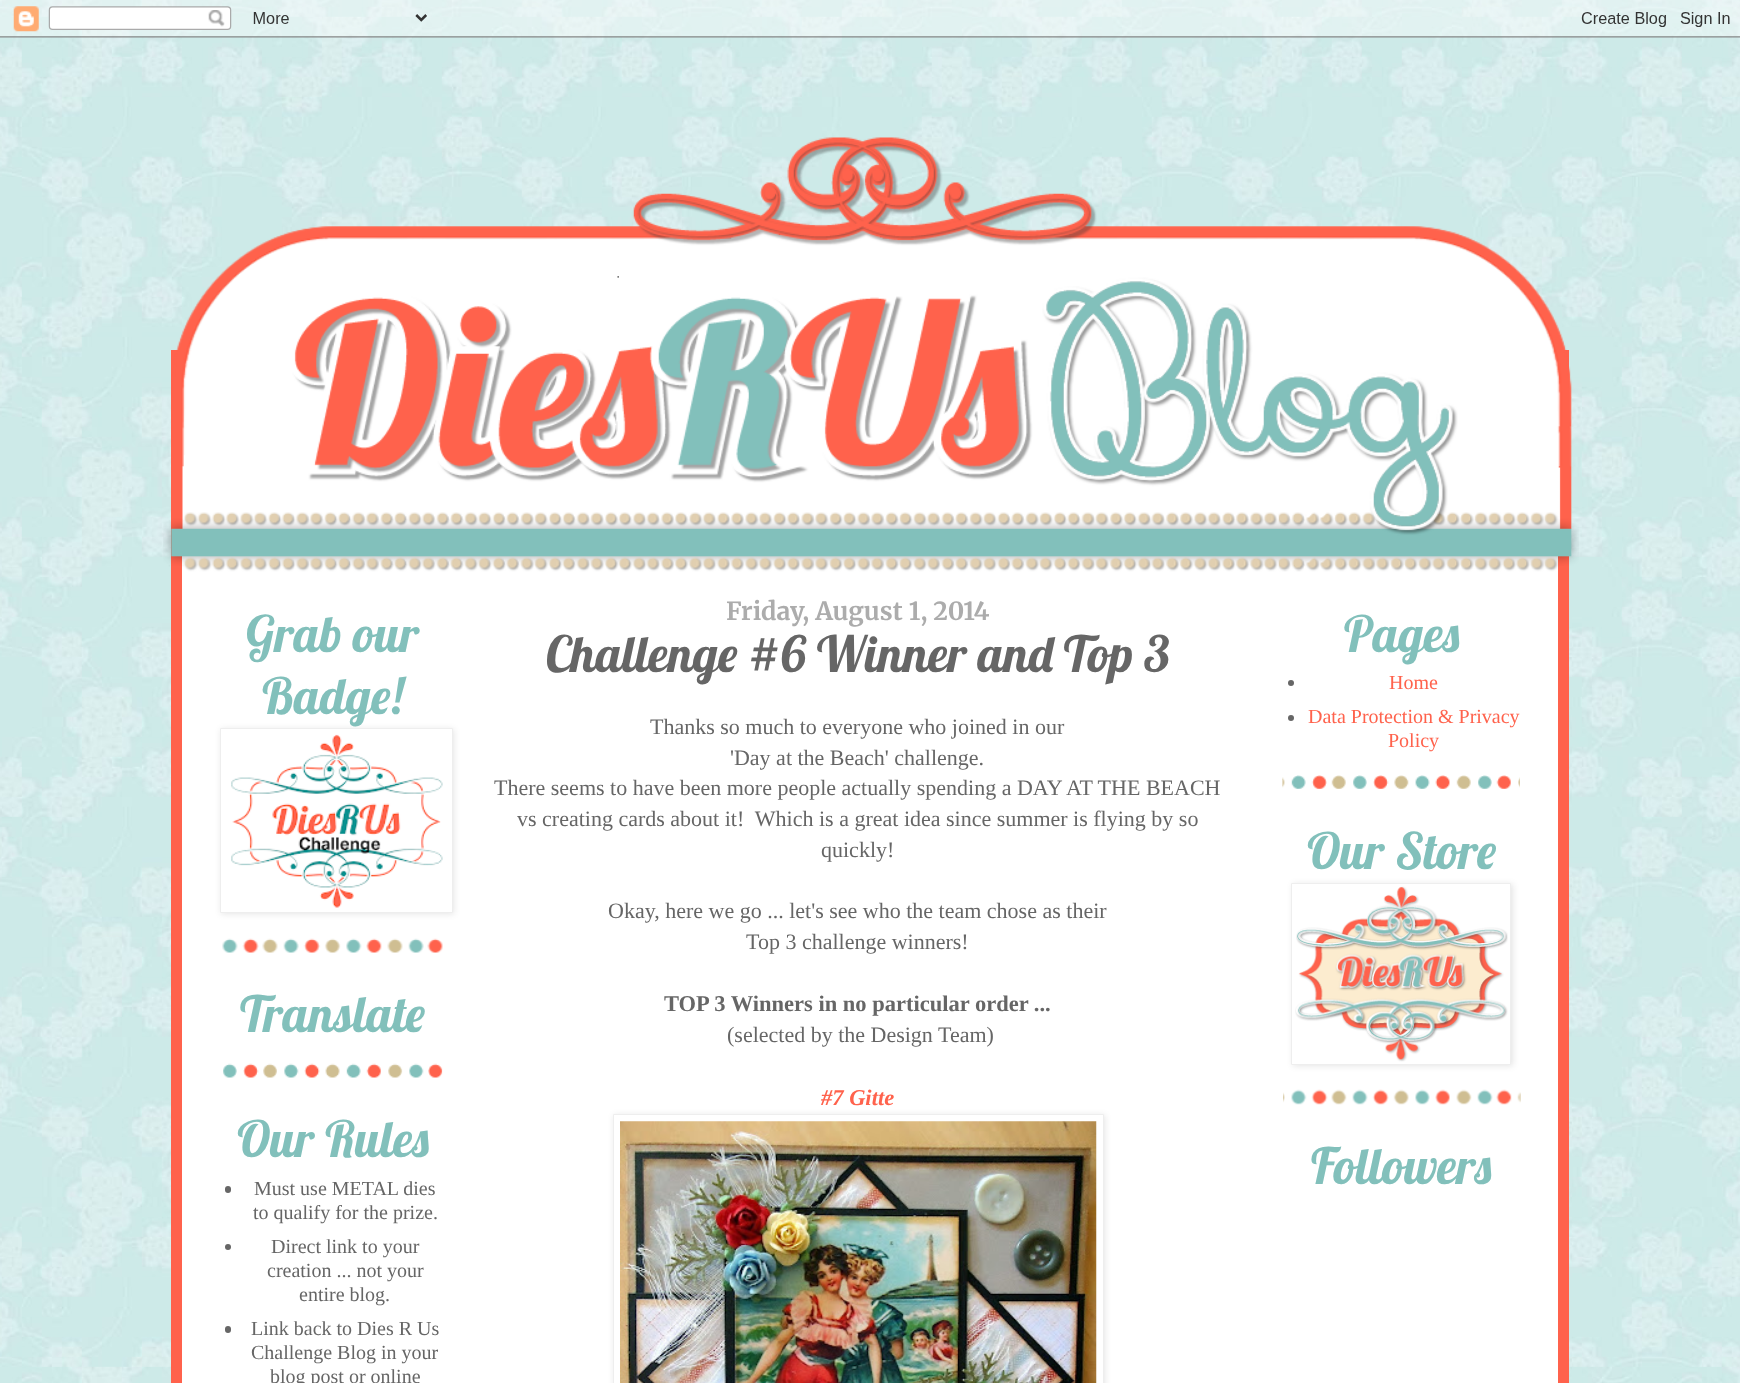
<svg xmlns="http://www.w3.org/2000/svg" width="1740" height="1383">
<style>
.a{font:50px Lobster;fill:#82c0bb}
.b{font:20px Liberation Serif;fill:#666}
.c{font:300 25px Merriweather;fill:#acacac}
.d{font:50px Lobster;fill:#666}
.e{font:22px Liberation Serif;fill:#666}
.f{font:bold 22.5px Liberation Serif;fill:#666}
.g{font:italic bold 22.5px Liberation Serif;fill:#ff624c}
.h{font:20px Liberation Serif;fill:#ff624c}
</style>
<rect width="100%" height="100%" fill="#fff"/>
<image href="1.png" x="0" y="0" width="1740" height="1383"/>
<image href="2.png" x="0" y="0" width="1740" height="38"/>
<path fill="#fff" stroke="#ff624c" stroke-width="11" d="M176.5 355.5h1387v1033H176.5z"/>
<image href="3.png" x="163" y="137" width="1416" height="435"/>
<image href="4.png" x="222" y="938" width="221" height="15"/>
<path fill="#0000001a" filter="blur(3px)" d="M221 729h233v185H221z"/>
<path fill="#fff" stroke="#eee" d="M220.5 728.5h232v184H220.5z"/>
<image href="5.png" x="231" y="734" width="212" height="174"/>
<image href="6.png" x="223" y="1063" width="220" height="15"/>
<rect fill="#666" x="225" y="1186" width="6" height="7" rx="3"/>
<circle fill="#666" cx="228" cy="1247" r="3"/>
<rect fill="#666" x="225" y="1326" width="6" height="7" rx="3"/>
<path fill="#0000001a" filter="blur(3px)" d="M614 1115h491v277H614z"/>
<path fill="#fff" stroke="#eee" d="M613.5 1114.5h490v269H613.5z"/>
<image href="7.png" x="620" y="1121" width="477" height="262"/>
<image href="8.png" x="1282" y="775" width="238" height="14"/>
<circle fill="#666" cx="1291" cy="683" r="3"/>
<circle fill="#666" cx="1291" cy="718" r="3"/>
<image href="9.png" x="1283" y="1089" width="238" height="16"/>
<path fill="#0000001a" filter="blur(3px)" d="M1293 884h220v182H1293z"/>
<path fill="#fff" stroke="#eee" d="M1291.5 883.5h219v181H1291.5z"/>
<image href="10.png" x="1295" y="886" width="213" height="176"/>
<text class="a" x="246" y="652">Grab our</text>
<text class="a" x="262" y="714">Badge!</text>
<text class="a" x="240" y="1032">Translate</text>
<text class="a" x="237" y="1157">Our Rules</text>
<text class="b" x="254" y="1195">Must use METAL dies</text>
<text class="b" x="253" y="1219">to qualify for the prize.</text>
<text class="b" x="271" y="1253">Direct link to your</text>
<text class="b" x="267" y="1277">creation ... not your</text>
<text class="b" x="299" y="1301">entire blog.</text>
<text class="b" x="251" y="1335">Link back to Dies R Us</text>
<text class="b" x="251" y="1359">Challenge Blog in your</text>
<text class="b" x="270" y="1383">blog post or online</text>
<text class="c" x="726" y="620">Friday, August 1, 2014</text>
<text class="d" x="546" y="672">Challenge #6 Winner and Top 3</text>
<text class="e" x="650" y="734">Thanks so much to everyone who joined in our</text>
<text class="e" x="730" y="765">'Day at the Beach' challenge.</text>
<text class="e" x="494" y="795">There seems to have been more people actually spending a DAY AT THE BEACH</text>
<text class="e" xml:space="preserve" x="517" y="826">vs creating cards about it!  Which is a great idea since summer is flying by so</text>
<text class="e" x="821" y="857">quickly!</text>
<text class="e" x="608" y="918">Okay, here we go ... let's see who the team chose as their</text>
<text class="e" x="746" y="949">Top 3 challenge winners!</text>
<text class="f" x="664" y="1011">TOP 3 Winners in no particular order ...</text>
<text class="e" x="727" y="1042">(selected by the Design Team)</text>
<text class="g" x="821" y="1105">#7 Gitte</text>
<text class="a" x="1344" y="652">Pages</text>
<text class="h" x="1389" y="689">Home</text>
<text class="h" x="1308" y="723">Data Protection &amp; Privacy</text>
<text class="h" x="1388" y="747">Policy</text>
<text class="a" x="1307" y="869">Our Store</text>
<text class="a" x="1311" y="1184">Followers</text>
</svg>
